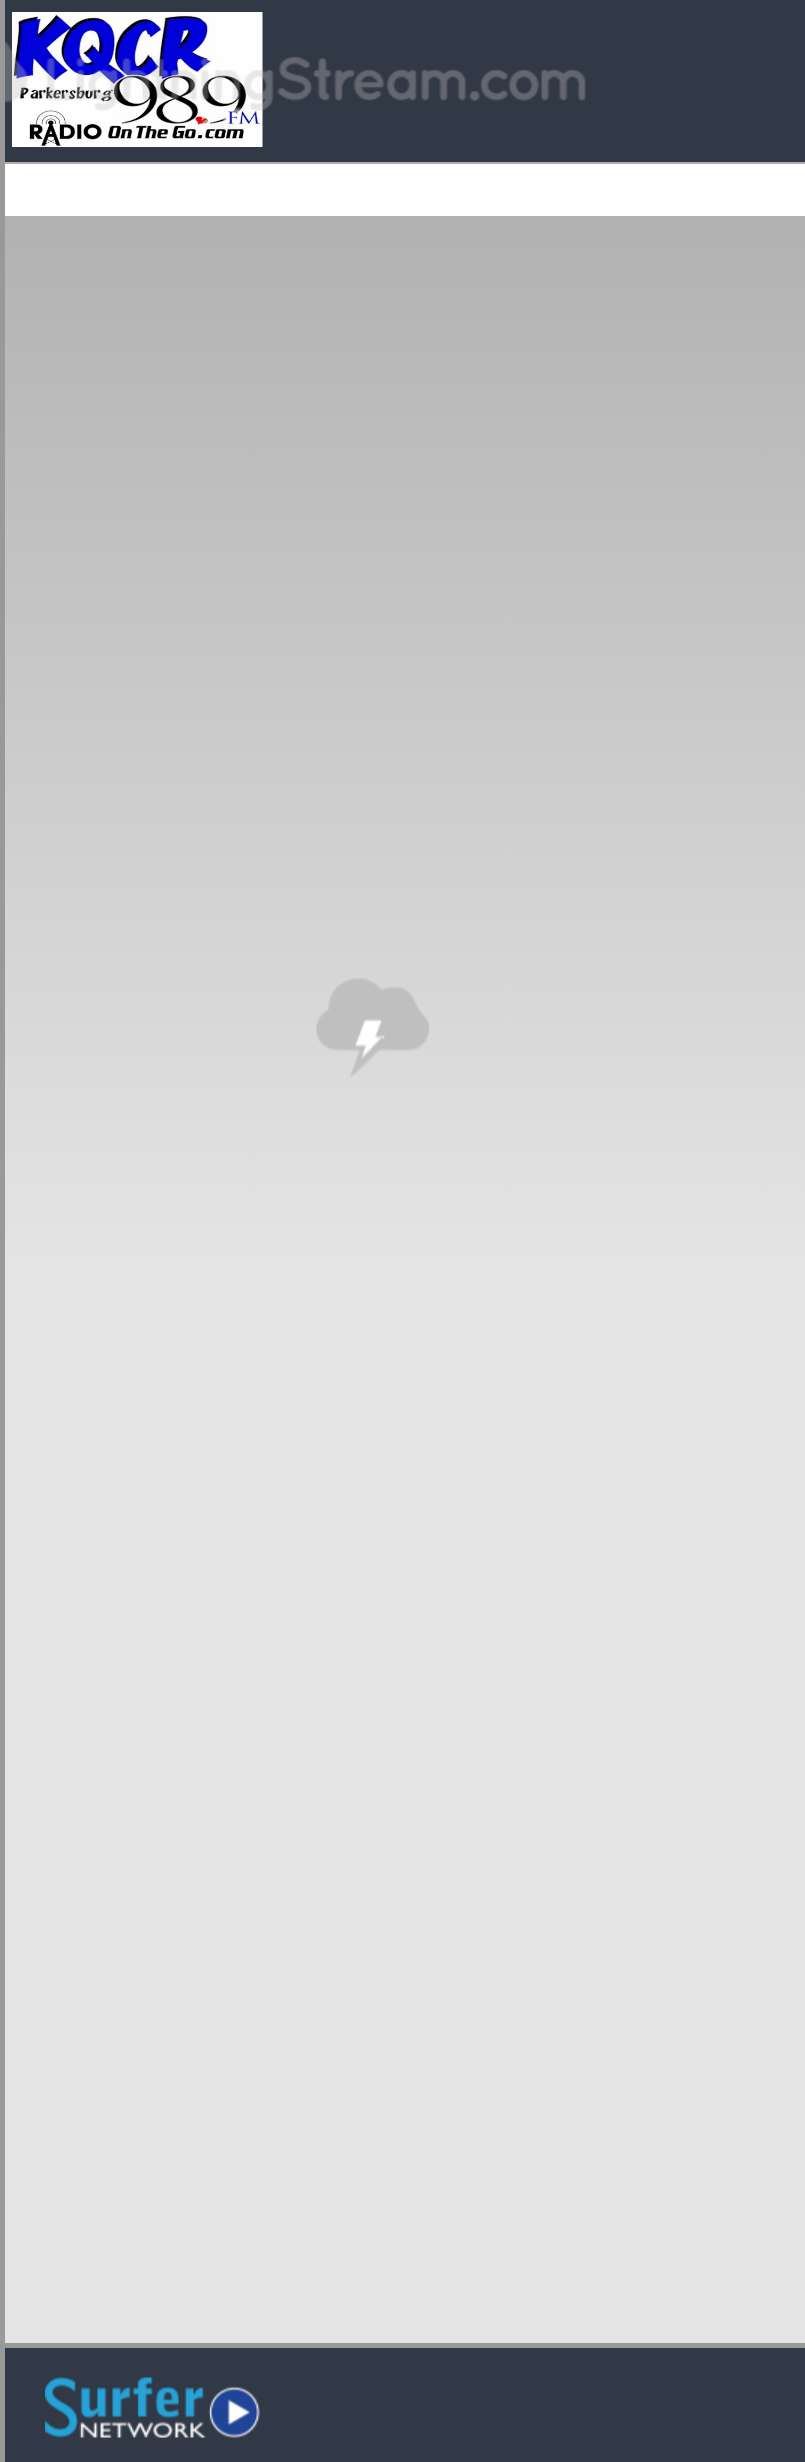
<svg xmlns="http://www.w3.org/2000/svg" width="805" height="2462">
<defs>
<linearGradient id="g1" gradientUnits="userSpaceOnUse" x1="0" y1="0" x2="0" y2="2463"><stop offset="0" stop-color="#a7a7a7"/><stop offset="0.51" stop-color="#e4e4e4"/></linearGradient>
</defs>
<rect width="100%" height="100%" fill="#fff"/>
<path fill="url(#g1)" d="M5 162h800v2181H5z"/>
<path fill="#999" d="M0 2343h805v5H0z"/>
<path fill="#999" d="M0 0h5v2462H0z"/>
<path fill="#323946" d="M5 0h800v162H5z"/>
<image href="1.png" x="12" y="12" width="251" height="135"/>
<image href="2.png" x="5" y="41" width="581" height="70"/>
<path fill="#fff" d="M5 164h800v52H5z"/>
<image href="3.png" x="316" y="978" width="114" height="99"/>
<path fill="#323946" d="M5 2348h800v114H5z"/>
<image href="4.png" x="45" y="2377" width="215" height="61"/>
</svg>
